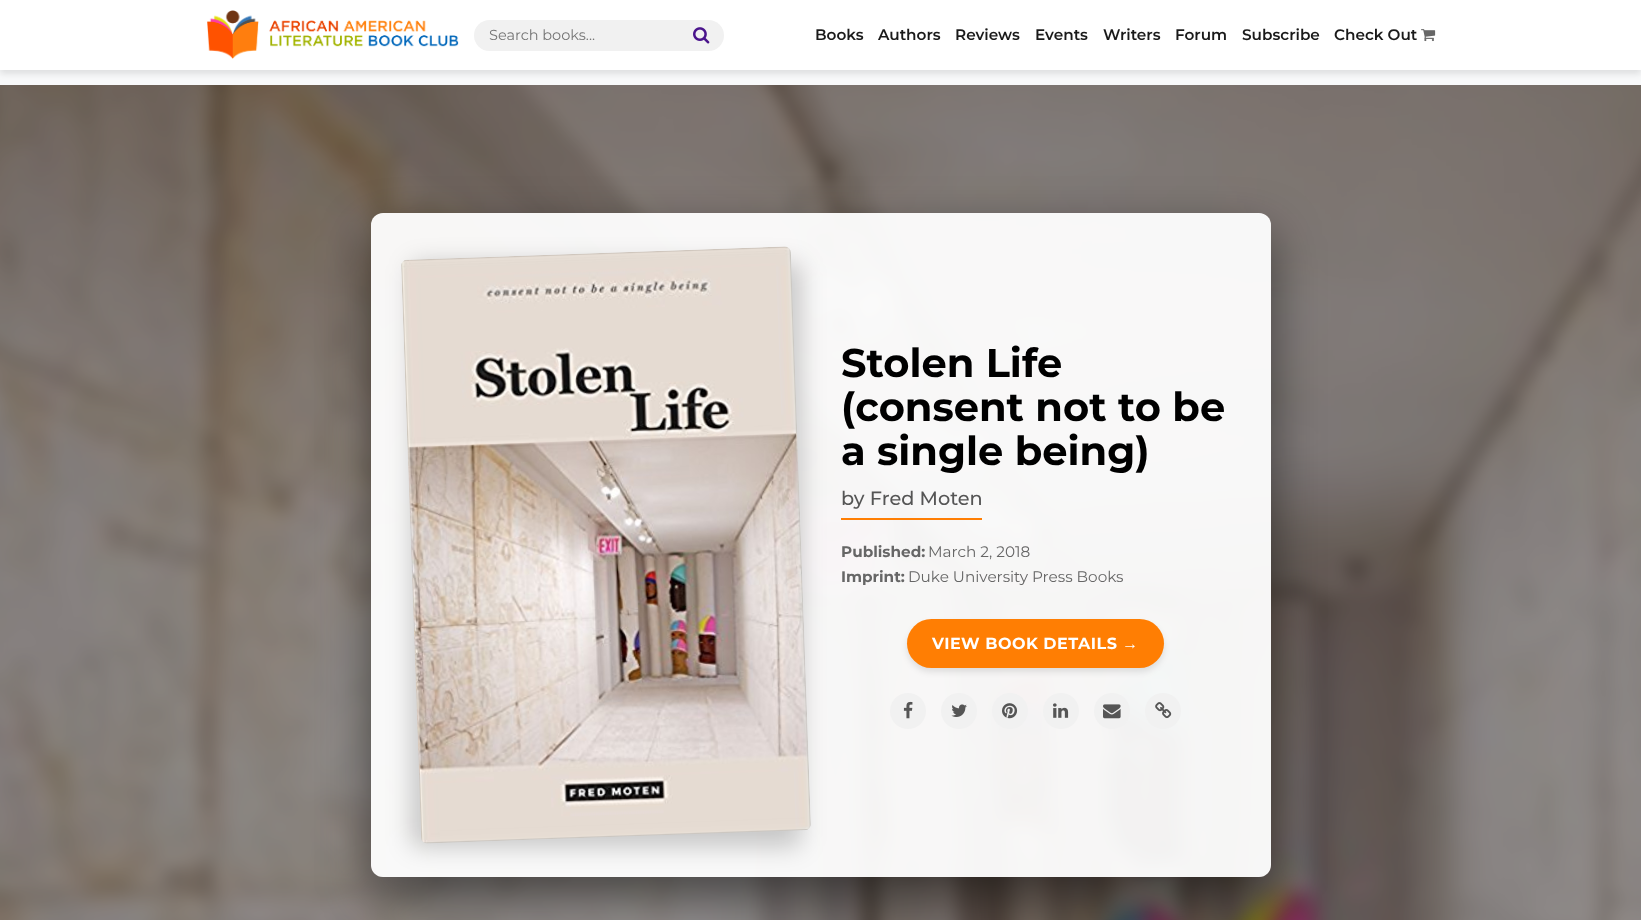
<svg xmlns="http://www.w3.org/2000/svg" width="1641" height="920">
<style>
.a{font:14.5px Montserrat;fill:#757575}
.b{font:600 15.25px Montserrat;fill:#1a1a1a}
.c{font:bold 40px Montserrat;fill:#000}
.d{font:500 19.25px Montserrat;fill:#555}
.e{font:bold 15.25px Montserrat;fill:#666}
.f{font:15.25px Montserrat;fill:#666}
.g{font:bold 16px Montserrat;letter-spacing:0.5px;fill:#fff}
.h{font:bold 16px Liberation Sans;letter-spacing:0.5px;fill:#fff}
</style>
<defs>
<clipPath id="clip1"><path d="M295 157h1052v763h-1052zm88 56h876c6.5 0 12 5.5 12 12v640c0 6.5-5.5 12-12 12h-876c-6.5 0-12-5.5-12-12v-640c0-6.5 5.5-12 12-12z" clip-rule="evenodd"/></clipPath>
</defs>
<rect width="100%" height="100%" fill="#f8f9fa"/>
<path fill="#0000001a" filter="blur(3px)" d="M0 4h1641v70H0z"/>
<path fill="#fff" d="M0 0h1641v70H0z"/>
<image href="1.png" x="207" y="10" width="252" height="49"/>
<rect fill="#f1f1f1" x="474" y="20" width="250" height="31" rx="15.5"/>
<image href="2.png" x="693" y="27" width="17" height="17"/>
<image href="3.png" x="1421" y="29" width="15" height="13"/>
<image href="4.png" x="0" y="85" width="1641" height="835"/>
<g clip-path="url(#clip1)">
<rect fill="#00000080" filter="blur(25px)" x="371" y="233" width="900" height="664" rx="12"/>
</g>
<rect fill="#fffffff2" x="371" y="213" width="900" height="664" rx="12"/>
<rect fill="#00000033" filter="blur(12.5px)" x="411" y="263" width="390" height="584" rx="6"/>
<image href="5.png" x="401" y="246" width="410" height="598"/>
<path fill="#ff7e03" d="M841 518h141v2H841z"/>
<rect fill="#0000001a" filter="blur(3px)" x="907" y="623" width="257" height="49" rx="24.5"/>
<rect fill="#ff7e03" x="907" y="619" width="257" height="49" rx="24.5"/>
<circle fill="#f1f1f1" cx="908" cy="711" r="18"/>
<image href="6.png" x="903" y="701" width="10" height="18"/>
<circle fill="#f1f1f1" cx="959" cy="711" r="18"/>
<image href="7.png" x="951" y="704" width="16" height="13"/>
<circle fill="#f1f1f1" cx="1010" cy="711" r="18"/>
<image href="8.png" x="1002" y="703" width="16" height="16"/>
<circle fill="#f1f1f1" cx="1061" cy="711" r="18"/>
<image href="9.png" x="1053" y="703" width="16" height="15"/>
<circle fill="#f1f1f1" cx="1112" cy="711" r="18"/>
<image href="10.png" x="1103" y="704" width="18" height="15"/>
<circle fill="#f1f1f1" cx="1163" cy="711" r="18"/>
<image href="11.png" x="1155" y="702" width="17" height="17"/>
<text class="a" x="489" y="40">Search books...</text>
<text class="b" x="815" y="40">Books</text>
<text class="b" x="878" y="40">Authors</text>
<text class="b" x="955" y="40">Reviews</text>
<text class="b" x="1035" y="40">Events</text>
<text class="b" x="1103" y="40">Writers</text>
<text class="b" x="1175" y="40">Forum</text>
<text class="b" x="1242" y="40">Subscribe</text>
<text class="b" x="1334" y="40">Check Out</text>
<text class="c" x="841" y="377">Stolen Life</text>
<text class="c" x="841" y="421">(consent not to be</text>
<text class="c" x="841" y="465">a single being)</text>
<text class="d" x="841" y="505">by Fred Moten</text>
<text class="e" x="841" y="557">Published:</text>
<text class="f" x="928" y="557">March 2, 2018</text>
<text class="e" x="841" y="582">Imprint:</text>
<text class="f" x="908" y="582">Duke University Press Books</text>
<text class="g" x="932" y="649">VIEW BOOK DETAILS</text>
<text class="h" x="1122" y="649">→</text>
</svg>
